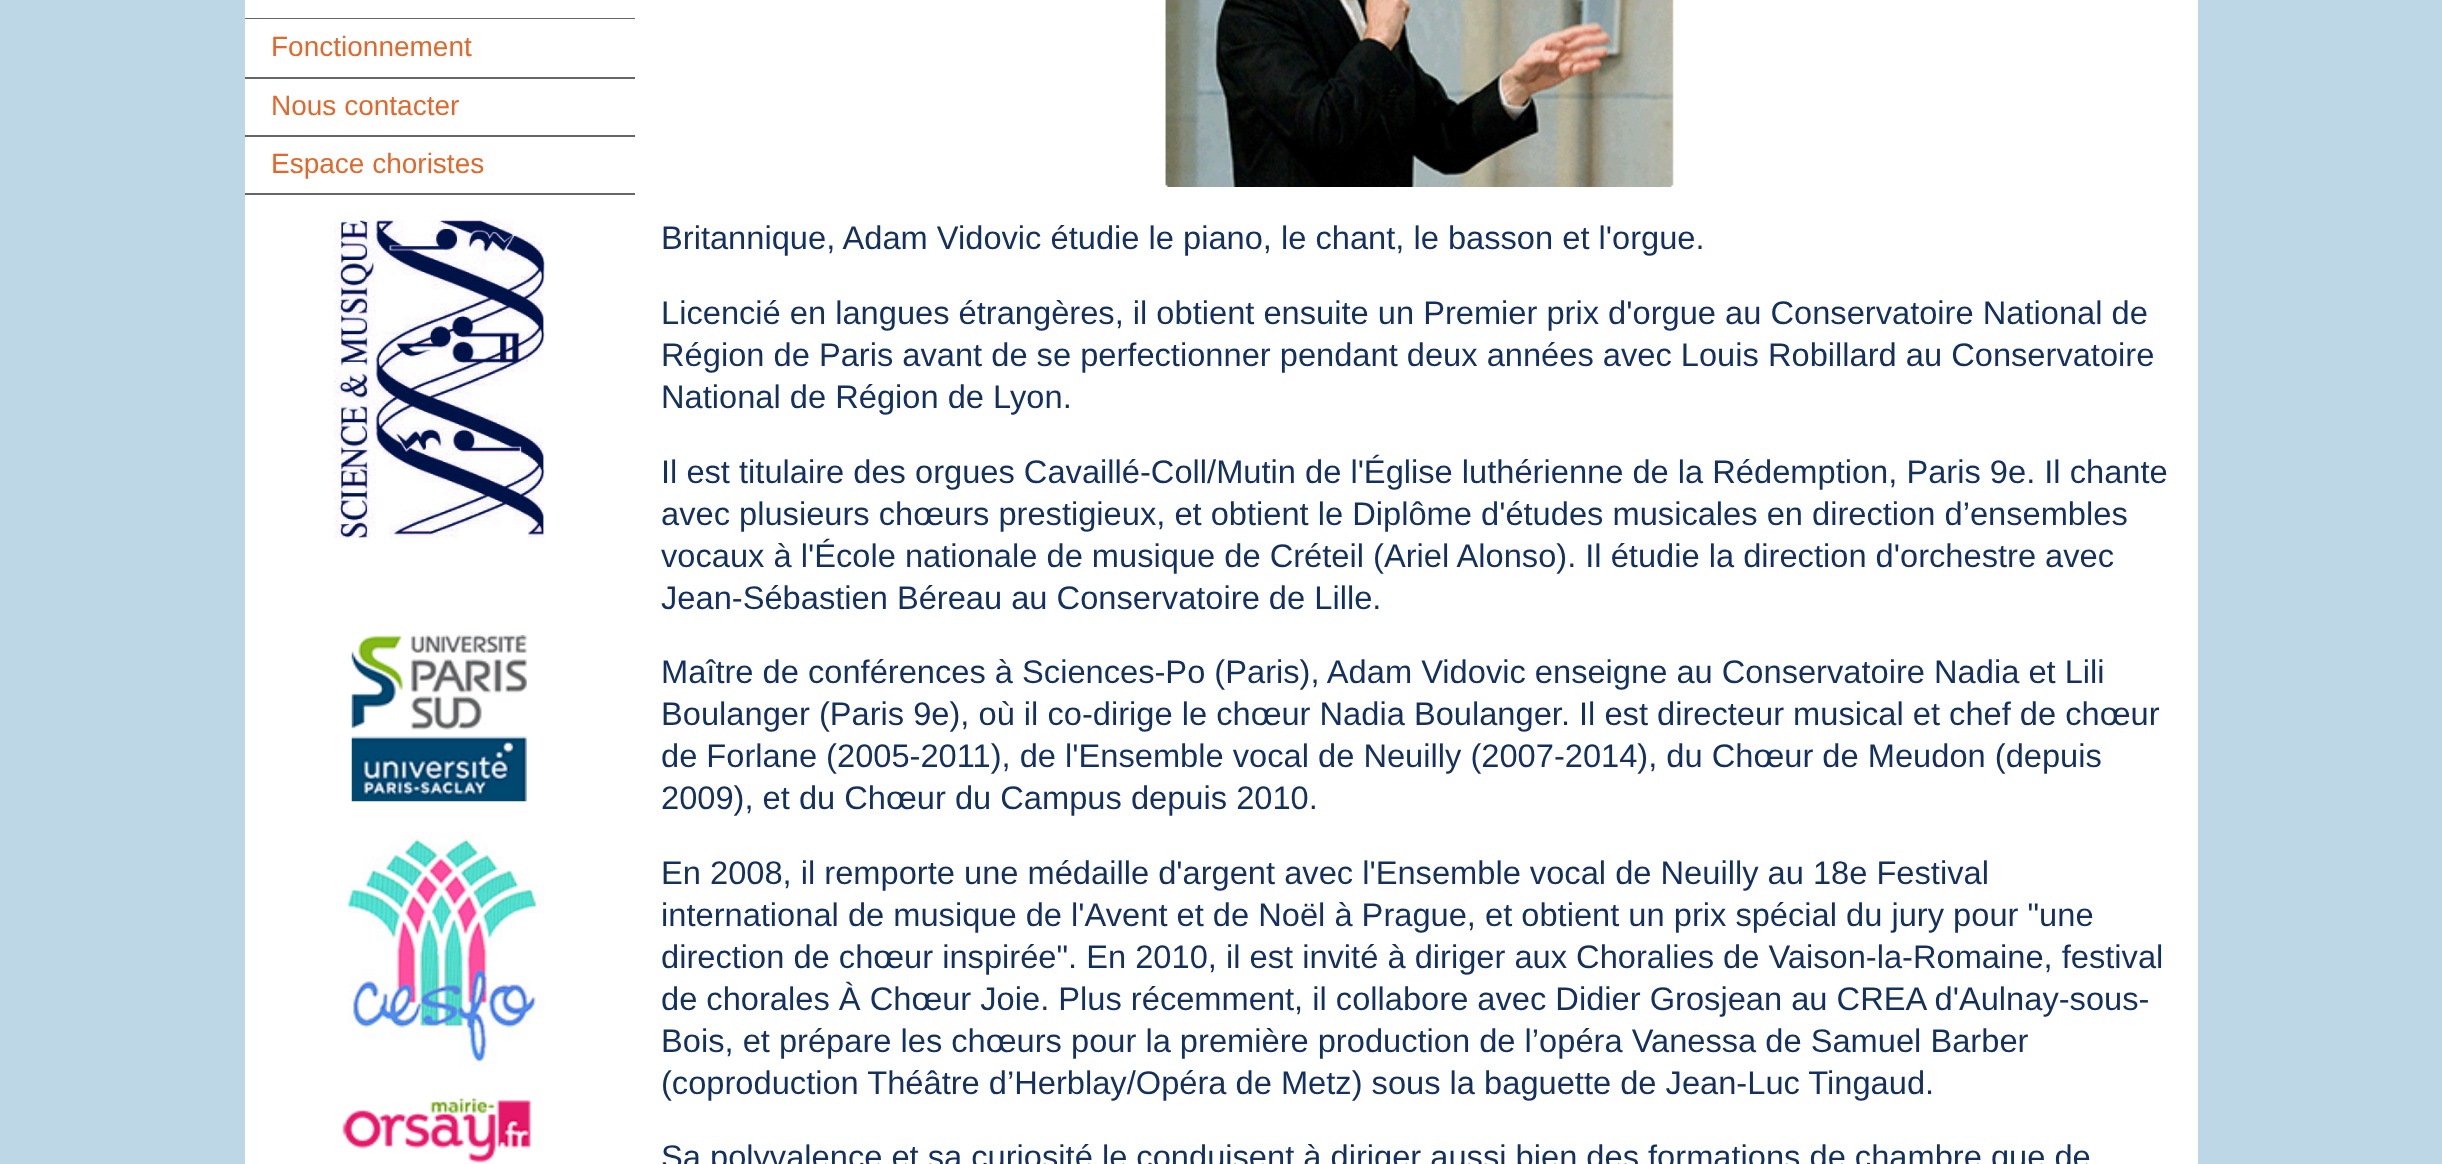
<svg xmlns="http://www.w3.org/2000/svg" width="2442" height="1164">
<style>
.a{font:28px Liberation Sans;fill:#e3672a}
.b{font:32.65px Liberation Sans;fill:#13305f}
</style>
<rect width="100%" height="100%" fill="#bed7e7"/>
<path fill="#fff" d="M245 0h1953v1164H245z"/>
<path fill="#666" d="M245 18h390v1H245z"/>
<path fill="#666" d="M245 77h390v2H245z"/>
<path fill="#666" d="M245 135h390v2H245z"/>
<path fill="#666" d="M245 193h390v2H245z"/>
<image href="1.png" x="334" y="220" width="211" height="318"/>
<image href="2.png" x="351" y="635" width="176" height="167"/>
<image href="3.png" x="347" y="831" width="197" height="235"/>
<image href="4.png" x="342" y="1098" width="189" height="65"/>
<image href="5.png" x="1165" y="0" width="509" height="187"/>
<text class="a" x="271" y="56">Fonctionnement</text>
<text class="a" x="271" y="115">Nous contacter</text>
<text class="a" x="271" y="173">Espace choristes</text>
<text class="b" x="661" y="249">Britannique, Adam Vidovic étudie le piano, le chant, le basson et l'orgue.</text>
<text class="b" x="661" y="324">Licencié en langues étrangères, il obtient ensuite un Premier prix d'orgue au Conservatoire National de</text>
<text class="b" x="661" y="366">Région de Paris avant de se perfectionner pendant deux années avec Louis Robillard au Conservatoire</text>
<text class="b" x="661" y="408">National de Région de Lyon.</text>
<text class="b" x="661" y="483">Il est titulaire des orgues Cavaillé-Coll/Mutin de l'Église luthérienne de la Rédemption, Paris 9e. Il chante</text>
<text class="b" x="661" y="525">avec plusieurs chœurs prestigieux, et obtient le Diplôme d'études musicales en direction d’ensembles</text>
<text class="b" x="661" y="567">vocaux à l'École nationale de musique de Créteil (Ariel Alonso). Il étudie la direction d'orchestre avec</text>
<text class="b" x="661" y="609">Jean-Sébastien Béreau au Conservatoire de Lille.</text>
<text class="b" x="661" y="683">Maître de conférences à Sciences-Po (Paris), Adam Vidovic enseigne au Conservatoire Nadia et Lili</text>
<text class="b" x="661" y="725">Boulanger (Paris 9e), où il co-dirige le chœur Nadia Boulanger. Il est directeur musical et chef de chœur</text>
<text class="b" x="661" y="767">de Forlane (2005-2011), de l'Ensemble vocal de Neuilly (2007-2014), du Chœur de Meudon (depuis</text>
<text class="b" x="661" y="809">2009), et du Chœur du Campus depuis 2010.</text>
<text class="b" x="661" y="884">En 2008, il remporte une médaille d'argent avec l'Ensemble vocal de Neuilly au 18e Festival</text>
<text class="b" x="661" y="926">international de musique de l'Avent et de Noël à Prague, et obtient un prix spécial du jury pour "une</text>
<text class="b" x="661" y="968">direction de chœur inspirée". En 2010, il est invité à diriger aux Choralies de Vaison-la-Romaine, festival</text>
<text class="b" x="661" y="1010">de chorales À Chœur Joie. Plus récemment, il collabore avec Didier Grosjean au CREA d'Aulnay-sous-</text>
<text class="b" x="661" y="1052">Bois, et prépare les chœurs pour la première production de l’opéra Vanessa de Samuel Barber</text>
<text class="b" x="661" y="1094">(coproduction Théâtre d’Herblay/Opéra de Metz) sous la baguette de Jean-Luc Tingaud.</text>
<text class="b" x="661" y="1168">Sa polyvalence et sa curiosité le conduisent à diriger aussi bien des formations de chambre que de</text>
</svg>
